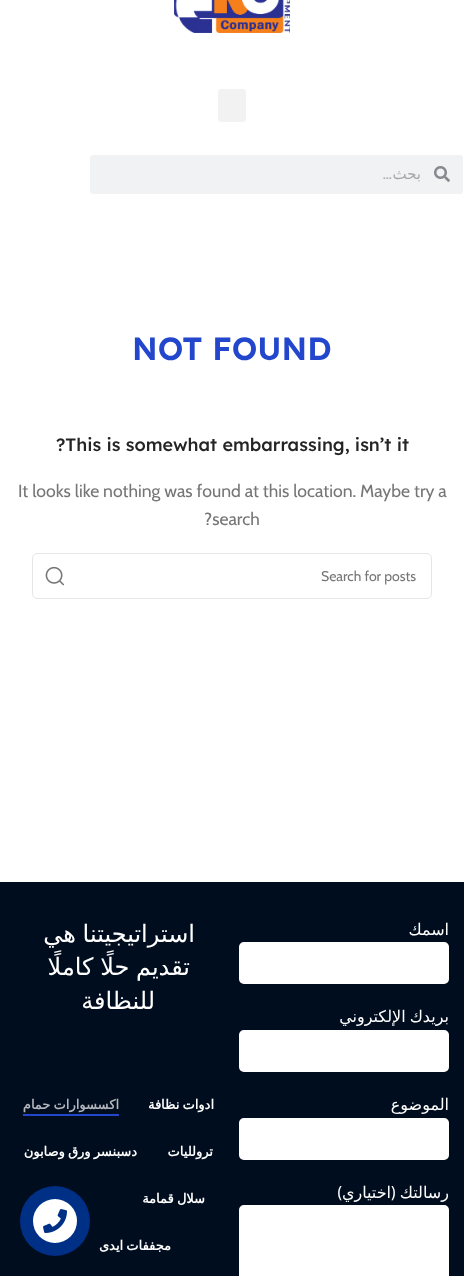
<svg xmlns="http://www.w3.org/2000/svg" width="464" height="1276">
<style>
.a{font:15px DejaVu Sans;direction:rtl;fill:#a7a8a8}
.b{font:15px Cabin;direction:rtl;fill:#a7a8a8}
.c{font:600 32px Lexend;fill:#2247cc}
.d{font:500 18px Lexend;fill:#242424}
.e{font:17.6px Cabin;fill:#767676}
.f{font:14px Cabin;fill:#767676}
.g{font:16px DejaVu Sans;direction:rtl;fill:#fff}
.h{font:16px Cabin;direction:rtl;fill:#fff}
.i{font:24px DejaVu Sans;direction:rtl;fill:#fff}
.j{font:bold 13px DejaVu Sans;direction:rtl;fill:#fff}
.k{font:bold 13px DejaVu Sans;direction:rtl;fill:#b3b6bc}
</style>
<rect width="100%" height="100%" fill="#fff"/>
<image href="1.png" x="174" y="0" width="116" height="33"/>
<rect fill="#f2f2f2" x="218" y="89" width="28" height="33" rx="3"/>
<rect fill="#f1f2f3" x="90" y="155" width="373" height="39" rx="3"/>
<image href="2.png" x="434" y="166" width="16" height="16"/>
<rect fill="none" stroke="#e6e6e6" x="32.5" y="553.5" width="399" height="45" rx="4.5"/>
<image href="3.png" x="45" y="566" width="19" height="20"/>
<path fill="#000d1e" d="M0 882h464v394H0z"/>
<rect fill="#fff" x="239" y="942" width="210" height="42" rx="5"/>
<rect fill="none" stroke="#ffffff33" x="239.5" y="942.5" width="209" height="41" rx="4.5"/>
<rect fill="#fff" x="239" y="1030" width="210" height="42" rx="5"/>
<rect fill="none" stroke="#ffffff33" x="239.5" y="1030.5" width="209" height="41" rx="4.5"/>
<rect fill="#fff" x="239" y="1118" width="210" height="42" rx="5"/>
<rect fill="none" stroke="#ffffff33" x="239.5" y="1118.5" width="209" height="41" rx="4.5"/>
<rect fill="#fff" x="239" y="1205" width="210" height="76" rx="5"/>
<rect fill="none" stroke="#ffffff33" x="239.5" y="1205.5" width="209" height="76" rx="4.5"/>
<path fill="#2247cc" d="M23 1114h96v2H23z"/>
<circle fill="#002f86" cx="55" cy="1221" r="35"/>
<circle fill="#fff" cx="55" cy="1221" r="22"/>
<image href="4.png" x="43" y="1209" width="24" height="24"/>
<text class="a" x="421" y="179">بحث</text>
<text class="b" x="392" y="179">...</text>
<text class="c" x="132" y="360">NOT FOUND</text>
<text class="d" x="56" y="451">?This is somewhat embarrassing, isn’t it</text>
<text class="e" x="18" y="497">It looks like nothing was found at this location. Maybe try a</text>
<text class="e" x="204" y="525">?search</text>
<text class="f" x="321" y="581">Search for posts</text>
<text class="g" x="449" y="935">اسمك</text>
<text class="g" x="449" y="1022" word-spacing="-1">بريدك الإلكتروني</text>
<text class="g" x="449" y="1110">الموضوع</text>
<text class="g" x="449" y="1198">رسالتك</text>
<text class="h" x="396" y="1198">(</text>
<text class="g" x="391" y="1198">اختياري</text>
<text class="h" x="342" y="1198">)</text>
<text class="i" x="195" y="942" word-spacing="-1">استراتيجيتنا هي</text>
<text class="i" x="190" y="975" word-spacing="-1">تقديم حلًا كاملًا</text>
<text class="i" x="155" y="1009">للنظافة</text>
<text class="j" x="214" y="1109" word-spacing="-1">ادوات نظافة</text>
<text class="k" x="119" y="1109" word-spacing="-1">اكسسوارات حمام</text>
<text class="j" x="213" y="1156">ترولليات</text>
<text class="j" x="137" y="1156" word-spacing="-1">دسبنسر ورق وصابون</text>
<text class="j" x="205" y="1203" word-spacing="-1">سلال قمامة</text>
<text class="j" x="171" y="1250" word-spacing="-1">مجففات ايدى</text>
</svg>
